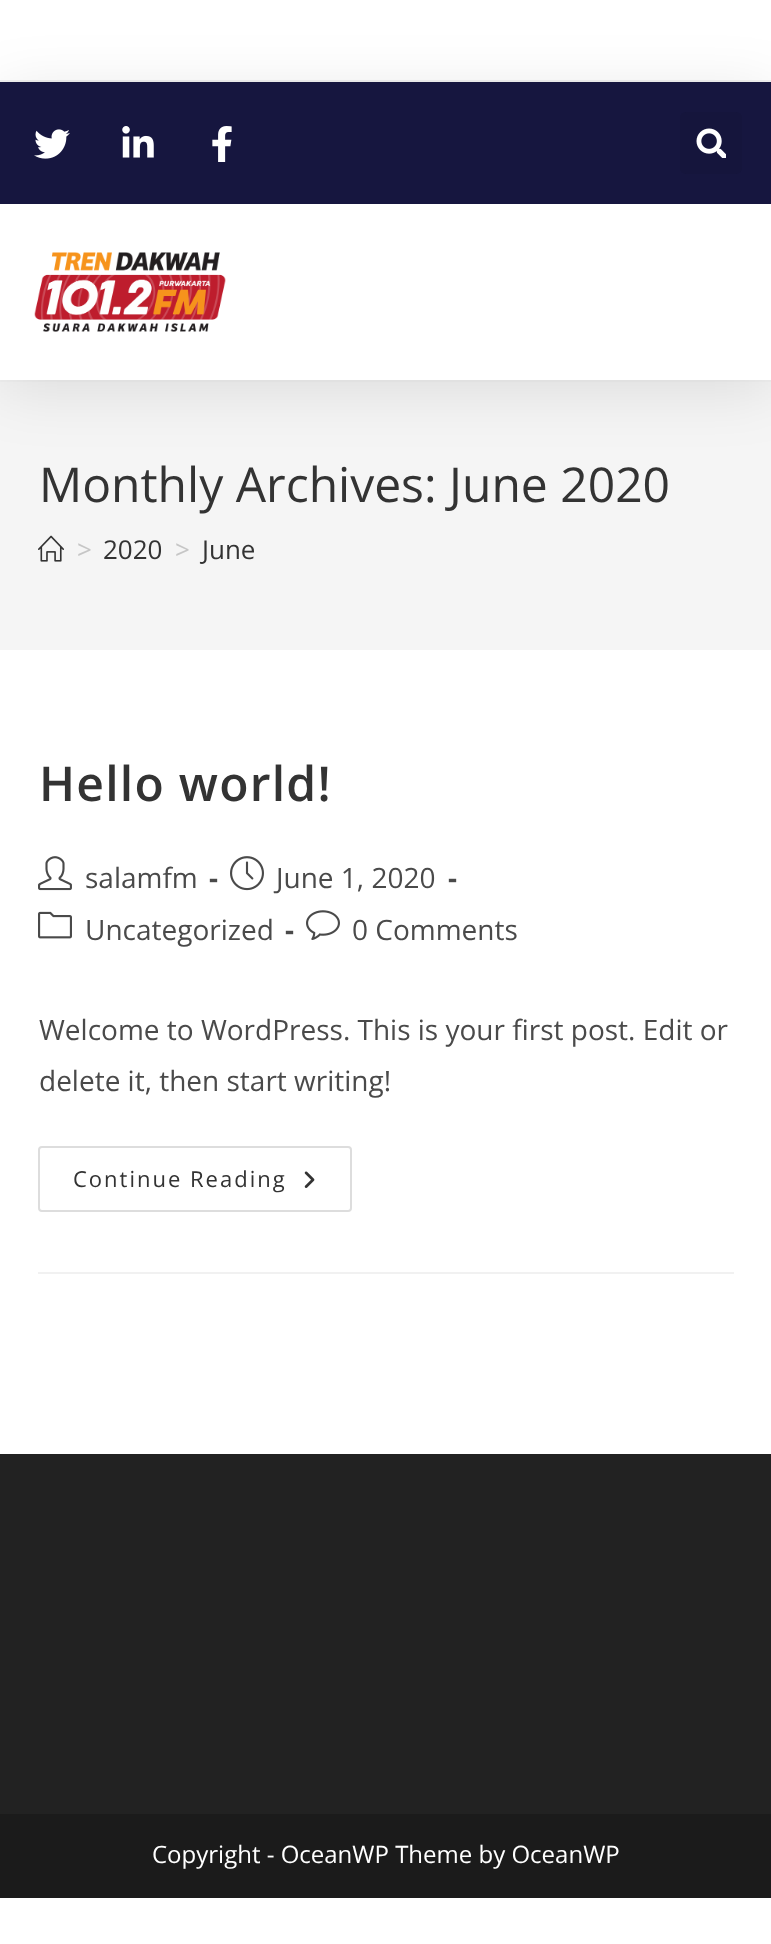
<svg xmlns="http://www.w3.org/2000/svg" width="771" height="1944">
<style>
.a{font:48px Open Sans;fill:#333}
.b{font:26px Open Sans;fill:#c6c6c6}
.c{font:26px Open Sans;fill:#333}
.d{font:600 48px Open Sans;letter-spacing:1.25px;fill:#333}
.e{font:28px Open Sans;fill:#4a4a4a}
.f{font:bold 28px Open Sans;fill:#4a4a4a}
.g{font:22px Open Sans;letter-spacing:2px;fill:#333}
.h{font:24px Open Sans;fill:#fff}
</style>
<defs>
<clipPath id="clip1"><path d="M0 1h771v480h-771zm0 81h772v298h-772z" clip-rule="evenodd"/></clipPath>
</defs>
<rect width="100%" height="100%" fill="#fff"/>
<path fill="#f1f1f1" d="M0 380h771v2H0z"/>
<path fill="#f1f1f1" d="M0 80h771v2H0z"/>
<path fill="#f5f5f5" d="M0 382h771v268H0z"/>
<g clip-path="url(#clip1)">
<path fill="#0000001a" filter="blur(30px)" d="M0 92h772v298H0z"/>
</g>
<path fill="#16163f" d="M0 82h771v122H0z"/>
<image href="1.png" x="34" y="129" width="36" height="30"/>
<image href="2.png" x="122" y="126" width="32" height="32"/>
<image href="3.png" x="212" y="126" width="20" height="36"/>
<rect fill="#15153c" x="680" y="112" width="62" height="62" rx="6"/>
<image href="4.png" x="696" y="128" width="30" height="30"/>
<image href="5.png" x="34" y="252" width="192" height="80"/>
<image href="6.png" x="38" y="535" width="26" height="27"/>
<path fill="#f1f1f1" d="M38 1272h696v2H38z"/>
<image href="7.png" x="38" y="856" width="34" height="35"/>
<image href="8.png" x="230" y="856" width="34" height="35"/>
<image href="9.png" x="38" y="911" width="34" height="28"/>
<image href="10.png" x="306" y="910" width="34" height="30"/>
<rect fill="none" stroke="#ddd" stroke-width="2" x="39" y="1147" width="312" height="64" rx="3"/>
<image href="11.png" x="304" y="1171" width="11" height="17"/>
<path fill="#222" d="M0 1454h771v360H0z"/>
<path fill="#1b1b1b" d="M0 1814h771v84H0z"/>
<text class="a" x="39" y="502">Monthly Archives: June 2020</text>
<text class="b" x="77" y="559">&gt;</text>
<text class="c" x="103" y="559">2020</text>
<text class="b" x="175" y="559">&gt;</text>
<text class="c" x="202" y="559">June</text>
<text class="d" x="39" y="801">Hello world!</text>
<text class="e" x="85" y="888">salamfm</text>
<text class="f" x="209" y="888">-</text>
<text class="e" x="276" y="888">June 1, 2020</text>
<text class="f" x="448" y="888">-</text>
<text class="e" x="85" y="940">Uncategorized</text>
<text class="f" x="285" y="940">-</text>
<text class="e" x="352" y="940">0 Comments</text>
<text class="e" x="39" y="1040">Welcome to WordPress. This is your first post. Edit or</text>
<text class="e" x="39" y="1091">delete it, then start writing!</text>
<text class="g" x="73" y="1187">Continue Reading</text>
<text class="h" x="152" y="1863">Copyright - OceanWP Theme by OceanWP</text>
</svg>
